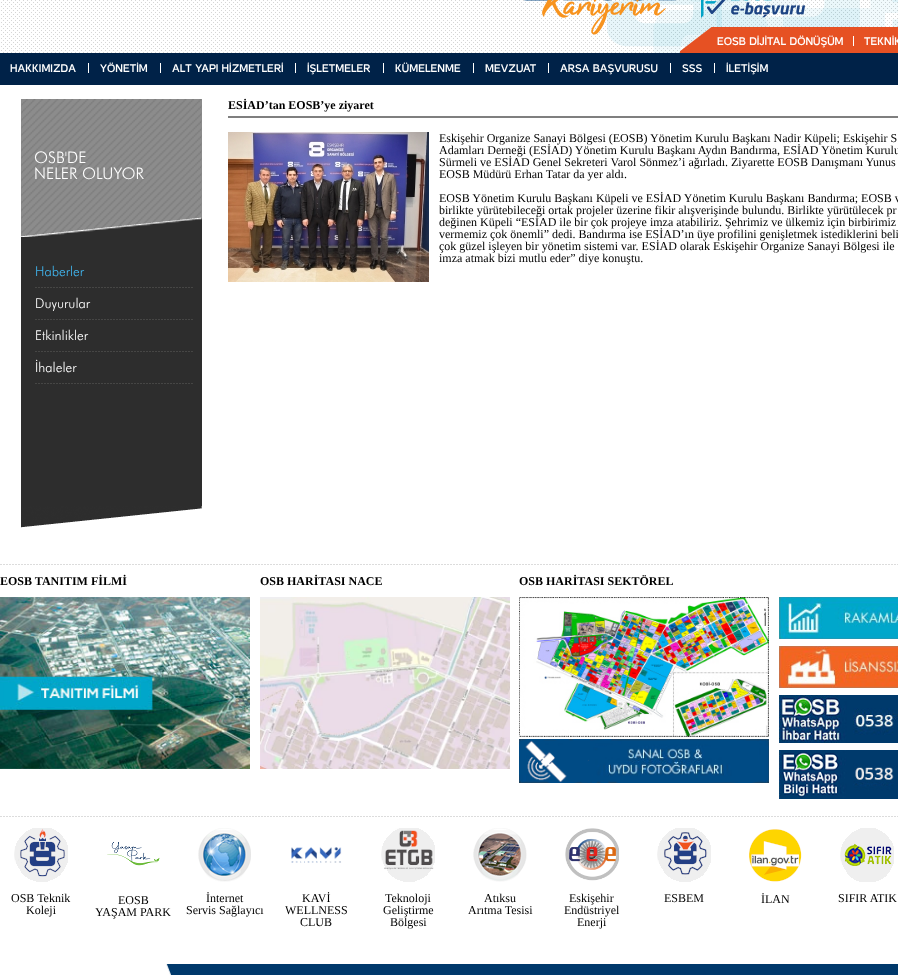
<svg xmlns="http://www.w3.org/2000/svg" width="898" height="975">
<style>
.a{font:bold 11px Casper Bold;fill:#fff}
.b{font:300 16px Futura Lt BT;fill:#fff}
.c{font:300 13.5px Futura Lt BT;fill:#40b5ee}
.d{font:300 13.5px Futura Lt BT;fill:#fff}
.e{font:bold 12px Liberation Serif;fill:#000}
.f{font:12px Liberation Serif;fill:#000}
</style>
<rect width="100%" height="100%" fill="#fff"/>
<image href="1.png" x="0" y="0" width="898" height="53"/>
<image href="2.png" x="524" y="0" width="153" height="35"/>
<image href="3.png" x="701" y="0" width="104" height="18"/>
<image href="4.png" x="680" y="27" width="218" height="26"/>
<path fill="#fff" d="M853 36h1v10H853z"/>
<path fill="#002248" d="M0 53h898v32H0z"/>
<path fill="#fff" d="M88 63h1v10H88z"/>
<path fill="#fff" d="M160 63h1v10H160z"/>
<path fill="#fff" d="M295 63h1v10H295z"/>
<path fill="#fff" d="M383 63h1v10H383z"/>
<path fill="#fff" d="M473 63h1v10H473z"/>
<path fill="#fff" d="M548 63h1v10H548z"/>
<path fill="#fff" d="M670 63h1v10H670z"/>
<path fill="#fff" d="M714 63h1v10H714z"/>
<path fill="#2d2d2d" d="M21 217h181v289H21z"/>
<image href="5.png" x="21" y="99" width="181" height="138"/>
<image href="6.png" x="21" y="506" width="181" height="22"/>
<image href="7.png" x="35" y="287" width="158" height="1"/>
<image href="7.png" x="35" y="319" width="158" height="1"/>
<image href="7.png" x="35" y="351" width="158" height="1"/>
<image href="7.png" x="35" y="383" width="158" height="1"/>
<path fill="#7f7f7f" d="M228 116h670v2H228z"/>
<image href="8.png" x="228" y="132" width="201" height="150"/>
<image href="9.png" x="0" y="564" width="898" height="1"/>
<image href="10.png" x="0" y="597" width="250" height="172"/>
<image href="11.png" x="260" y="597" width="250" height="172"/>
<image href="12.png" x="519" y="597" width="250" height="140"/>
<image href="13.png" x="519" y="739" width="250" height="44"/>
<image href="14.png" x="779" y="597" width="119" height="42"/>
<image href="15.png" x="779" y="646" width="119" height="42"/>
<image href="16.png" x="779" y="695" width="119" height="48"/>
<image href="17.png" x="779" y="750" width="119" height="49"/>
<image href="9.png" x="0" y="816" width="898" height="1"/>
<image href="18.png" x="14" y="828" width="54" height="54"/>
<image href="19.png" x="107" y="842" width="53" height="24"/>
<image href="20.png" x="198" y="828" width="53" height="54"/>
<image href="21.png" x="291" y="847" width="51" height="16"/>
<image href="22.png" x="381" y="828" width="54" height="54"/>
<image href="23.png" x="473" y="828" width="54" height="54"/>
<image href="24.png" x="565" y="828" width="54" height="53"/>
<image href="25.png" x="657" y="828" width="54" height="54"/>
<image href="26.png" x="749" y="829" width="53" height="53"/>
<image href="27.png" x="840" y="828" width="54" height="54"/>
<image href="28.png" x="166" y="964" width="732" height="11"/>
<text class="a" x="717" y="45">EOSB DİJİTAL DÖNÜŞÜM</text>
<text class="a" x="864" y="45">TEKNİK</text>
<text class="a" x="10" y="72">HAKKIMIZDA</text>
<text class="a" x="100" y="72">YÖNETİM</text>
<text class="a" x="172" y="72">ALT YAPI HİZMETLERİ</text>
<text class="a" x="307" y="72">İŞLETMELER</text>
<text class="a" x="395" y="72">KÜMELENME</text>
<text class="a" x="485" y="72">MEVZUAT</text>
<text class="a" x="560" y="72">ARSA BAŞVURUSU</text>
<text class="a" x="682" y="72">SSS</text>
<text class="a" x="726" y="72">İLETİŞİM</text>
<text class="b" x="34" y="163">OSB'DE</text>
<text class="b" x="34" y="179">NELER OLUYOR</text>
<text class="c" x="35" y="276">Haberler</text>
<text class="d" x="35" y="308">Duyurular</text>
<text class="d" x="35" y="340">Etkinlikler</text>
<text class="d" x="35" y="372">İhaleler</text>
<text class="e" x="228" y="109">ESİAD’tan EOSB’ye ziyaret</text>
<text class="f" x="439" y="142">Eskişehir Organize Sanayi Bölgesi (EOSB) Yönetim Kurulu Başkanı Nadir Küpeli; Eskişehir S</text>
<text class="f" x="439" y="154">Adamları Derneği (ESİAD) Yönetim Kurulu Başkanı Aydın Bandırma, ESİAD Yönetim Kurulu</text>
<text class="f" x="439" y="166">Sürmeli ve ESİAD Genel Sekreteri Varol Sönmez’i ağırladı. Ziyarette EOSB Danışmanı Yunus</text>
<text class="f" x="439" y="178">EOSB Müdürü Erhan Tatar da yer aldı.</text>
<text class="f" x="439" y="202">EOSB Yönetim Kurulu Başkanı Küpeli ve ESİAD Yönetim Kurulu Başkanı Bandırma; EOSB v</text>
<text class="f" x="439" y="214">birlikte yürütebileceği ortak projeler üzerine fikir alışverişinde bulundu. Birlikte yürütülecek pr</text>
<text class="f" x="439" y="226">değinen Küpeli “ESİAD ile bir çok projeye imza atabiliriz. Şehrimiz ve ülkemiz için birbirimiz</text>
<text class="f" x="439" y="238">vermemiz çok önemli” dedi. Bandırma ise ESİAD’ın üye profilini genişletmek istediklerini beli</text>
<text class="f" x="439" y="250">çok güzel işleyen bir yönetim sistemi var. ESİAD olarak Eskişehir Organize Sanayi Bölgesi ile</text>
<text class="f" x="439" y="262">imza atmak bizi mutlu eder” diye konuştu.</text>
<text class="e" x="0" y="585">EOSB TANITIM FİLMİ</text>
<text class="e" x="260" y="585">OSB HARİTASI NACE</text>
<text class="e" x="519" y="585">OSB HARİTASI SEKTÖREL</text>
<text class="f" x="11" y="902">OSB Teknik</text>
<text class="f" x="26" y="914">Koleji</text>
<text class="f" x="118" y="904">EOSB</text>
<text class="f" x="95" y="916">YAŞAM PARK</text>
<text class="f" x="206" y="902">İnternet</text>
<text class="f" x="186" y="914">Servis Sağlayıcı</text>
<text class="f" x="302" y="902">KAVİ</text>
<text class="f" x="285" y="914">WELLNESS</text>
<text class="f" x="300" y="926">CLUB</text>
<text class="f" x="385" y="902">Teknoloji</text>
<text class="f" x="383" y="914">Geliştirme</text>
<text class="f" x="390" y="926">Bölgesi</text>
<text class="f" x="484" y="902">Atıksu</text>
<text class="f" x="468" y="914">Arıtma Tesisi</text>
<text class="f" x="569" y="902">Eskişehir</text>
<text class="f" x="564" y="914">Endüstriyel</text>
<text class="f" x="577" y="926">Enerji</text>
<text class="f" x="664" y="902">ESBEM</text>
<text class="f" x="761" y="903">İLAN</text>
<text class="f" x="838" y="902">SIFIR ATIK</text>
</svg>
